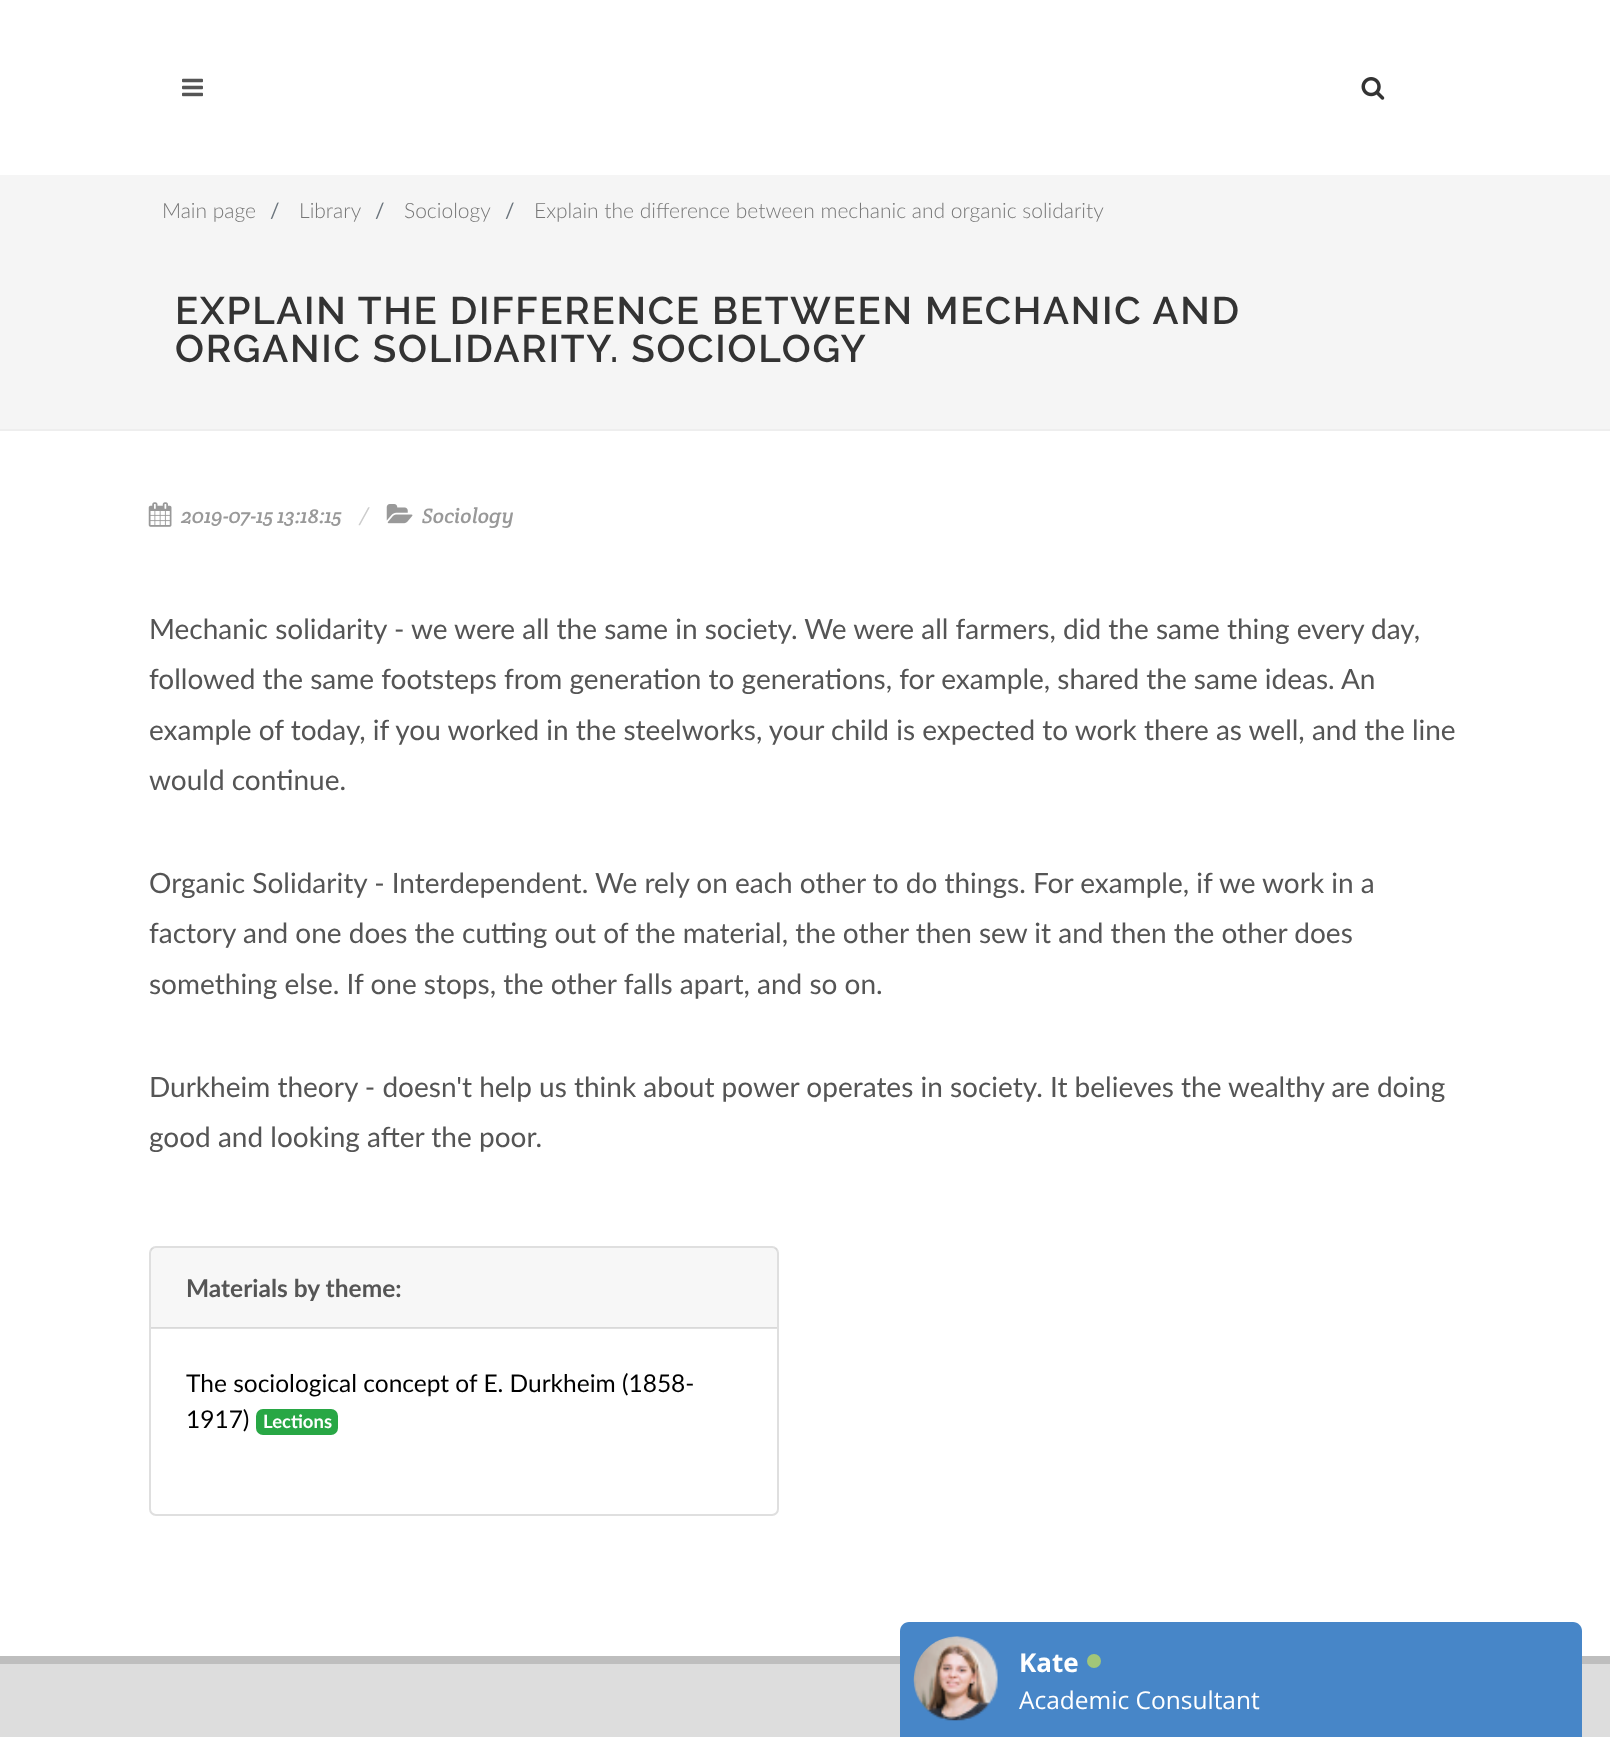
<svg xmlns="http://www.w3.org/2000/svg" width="1610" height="1737">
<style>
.a{font:300 21px Lato;fill:#777}
.b{font:21px Lato;fill:#6c757d}
.c{font:600 38.5px Raleway;letter-spacing:1.75px;fill:#333}
.d{font:italic 21px Crete Round;fill:#999}
.e{font:italic 21px Crete Round;fill:#ccc}
.f{font:28px Lato;fill:#555}
.g{font:bold 24.5px Lato;fill:#555}
.h{font:24.5px Lato;fill:#000}
.i{font:bold 18.5px Lato;fill:#fff}
.j{font:bold 26px Open Sans;fill:#fff}
.k{font:24.5px Open Sans;fill:#fff}
</style>
<defs>
<clipPath id="clip1"><path d="M186 1363h556v74H186z"/></clipPath>
</defs>
<rect width="100%" height="100%" fill="#fff"/>
<path fill="#f5f5f5" d="M0 175h1610v254H0z"/>
<image href="1.png" x="182" y="78" width="21" height="19"/>
<image href="2.png" x="1361" y="77" width="24" height="23"/>
<path fill="#eee" d="M0 429h1610v2H0z"/>
<image href="3.png" x="148" y="502" width="24" height="25"/>
<image href="4.png" x="386" y="504" width="27" height="20"/>
<rect fill="none" stroke="#dfdfdf" stroke-width="2" x="150" y="1247" width="628" height="268" rx="6"/>
<path fill="#00000008" d="M151 1248h626v80H151z"/>
<path fill="#0000001f" d="M151 1327h626v2H151z"/>
<rect fill="#28a745" x="256" y="1409" width="82" height="26" rx="7"/>
<path fill="#bebebe" d="M0 1656h1610v8H0z"/>
<path fill="#ddd" d="M0 1664h1610v73H0z"/>
<path fill="#4786c8" d="M909 1622h664c5 0 9 4 9 9v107h-682v-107c0-5 4-9 9-9z"/>
<image href="5.png" x="913" y="1636" width="85" height="85"/>
<circle fill="#a2c679" cx="1094" cy="1661" r="7"/>
<text class="a" x="162" y="218">Main page</text>
<text class="b" x="270" y="218">/</text>
<text class="a" x="299" y="218">Library</text>
<text class="b" x="375" y="218">/</text>
<text class="a" x="404" y="218">Sociology</text>
<text class="b" x="505" y="218">/</text>
<text class="a" x="534" y="218">Explain the difference between mechanic and organic solidarity</text>
<text class="c" x="175" y="324">EXPLAIN THE DIFFERENCE BETWEEN MECHANIC AND</text>
<text class="c" x="175" y="362">ORGANIC SOLIDARITY. SOCIOLOGY</text>
<text class="d" x="181" y="523">2019-07-15 13:18:15</text>
<text class="e" x="359" y="523">/</text>
<text class="d" x="422" y="523">Sociology</text>
<text class="f" x="149" y="639">Mechanic solidarity - we were all the same in society. We were all farmers, did the same thing every day,</text>
<text class="f" x="149" y="689">followed the same footsteps from generation to generations, for example, shared the same ideas. An</text>
<text class="f" x="149" y="740">example of today, if you worked in the steelworks, your child is expected to work there as well, and the line</text>
<text class="f" x="149" y="790">would continue.</text>
<text class="f" x="149" y="893">Organic Solidarity - Interdependent. We rely on each other to do things. For example, if we work in a</text>
<text class="f" x="149" y="943">factory and one does the cutting out of the material, the other then sew it and then the other does</text>
<text class="f" x="149" y="994">something else. If one stops, the other falls apart, and so on.</text>
<text class="f" x="149" y="1097">Durkheim theory - doesn't help us think about power operates in society. It believes the wealthy are doing</text>
<text class="f" x="149" y="1147">good and looking after the poor.</text>
<text class="g" x="186" y="1297">Materials by theme:</text>
<g clip-path="url(#clip1)">
<text class="h" x="186" y="1392">The sociological concept of E. Durkheim (1858-</text>
</g>
<text class="h" x="186" y="1428">1917)</text>
<text class="i" x="263" y="1428">Lections</text>
<text class="j" x="1019" y="1672">Kate</text>
<text class="k" x="1019" y="1709">Academic Consultant</text>
</svg>
